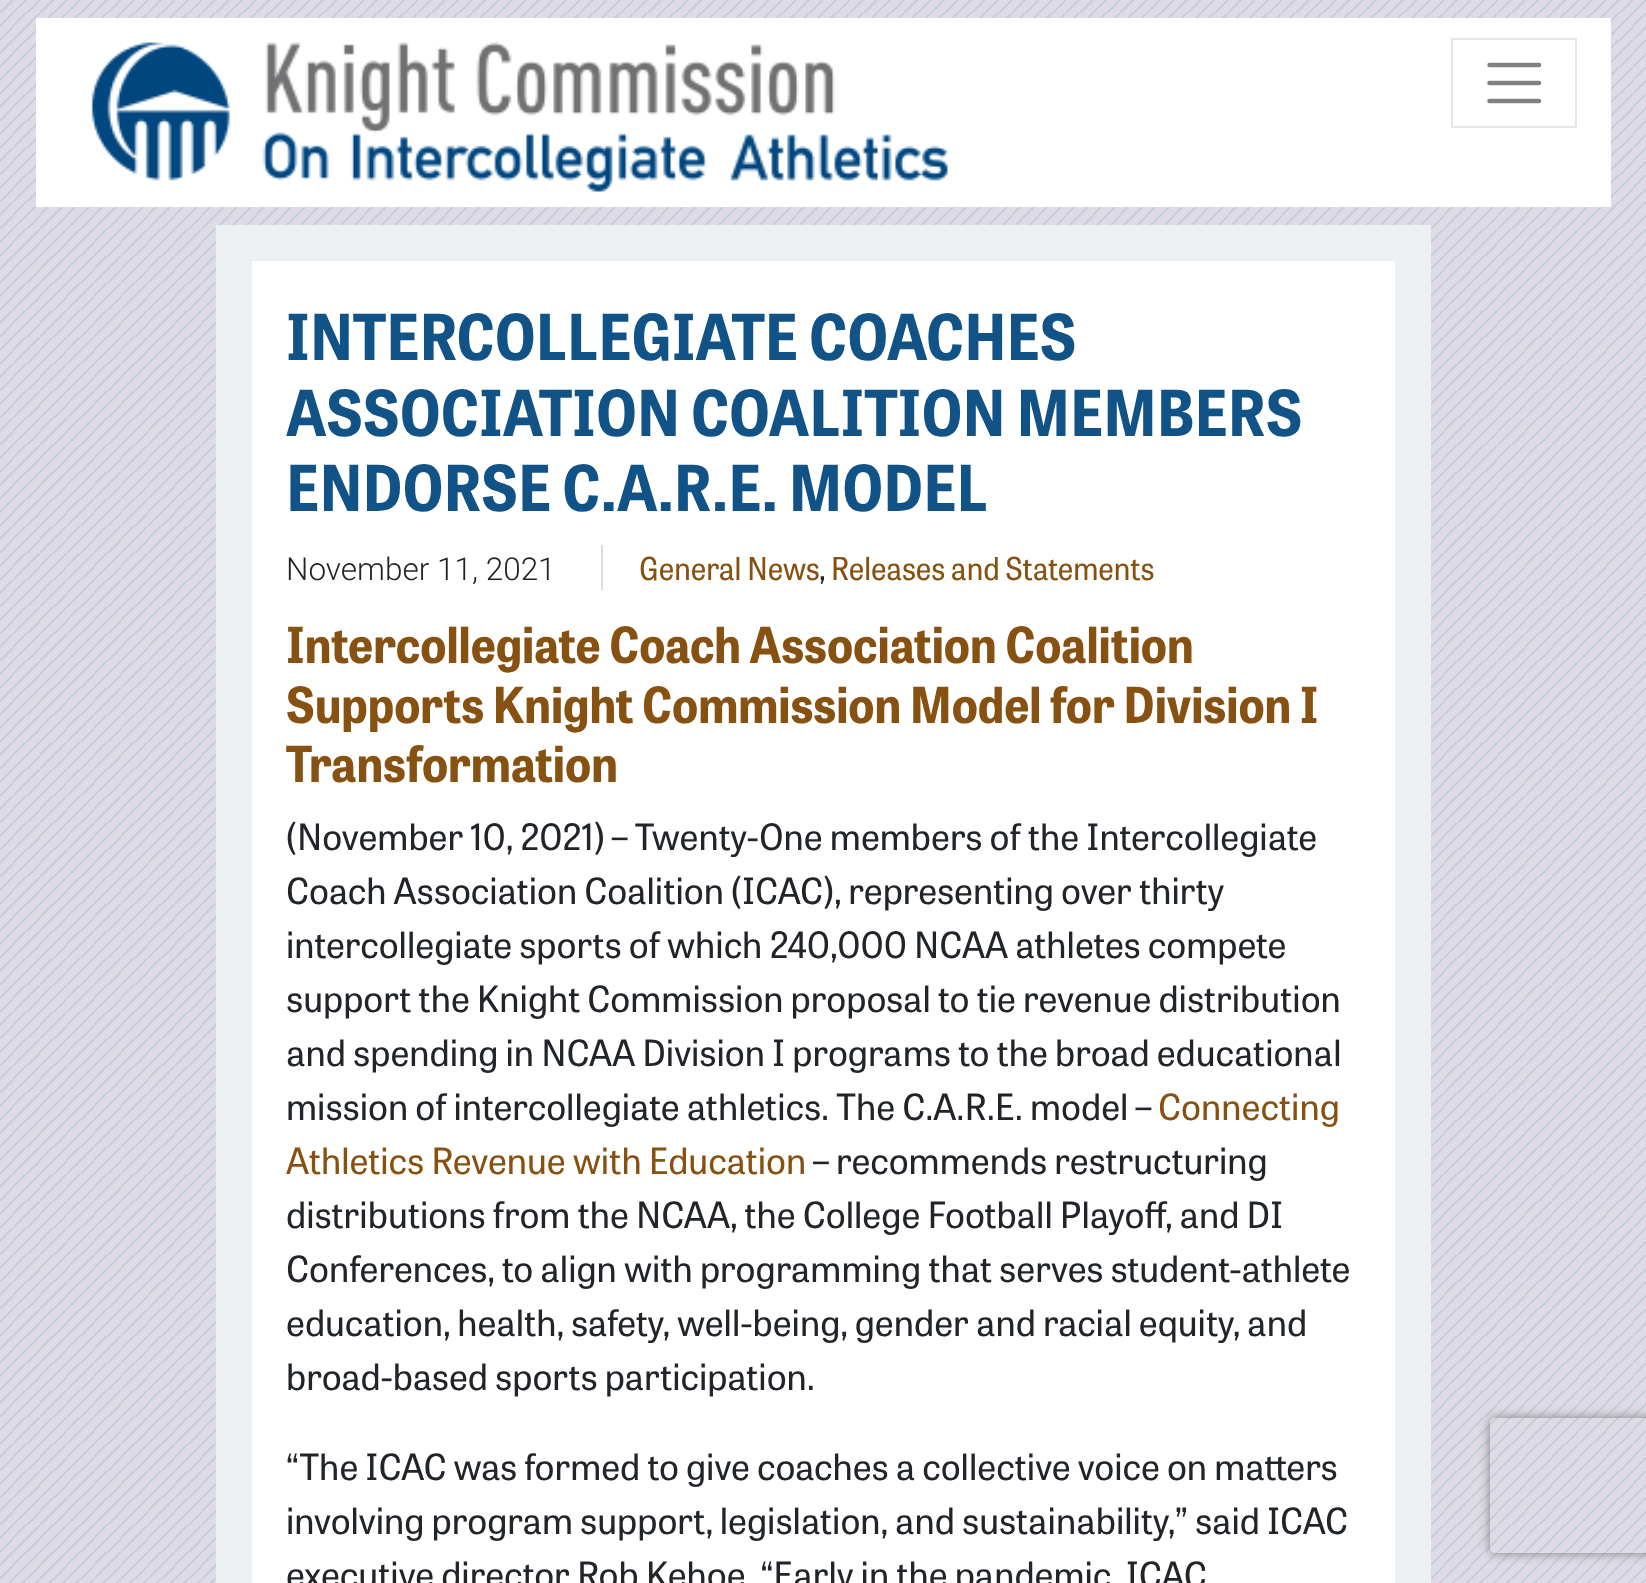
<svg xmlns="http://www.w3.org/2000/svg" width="1646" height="1583">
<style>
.a{font:bold 63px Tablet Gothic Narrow;fill:#115287}
.b{font:300 31.5px Roboto;fill:#212529}
.c{font:31.5px Tablet Gothic Narrow;fill:#875111}
.d{font:31.5px Tablet Gothic Narrow;fill:#212529}
.e{font:bold 49.5px Tablet Gothic Narrow;fill:#875111}
.f{font:36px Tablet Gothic;fill:#212529}
.g{font:36px Tablet Gothic;fill:#875111}
</style>
<defs>
<clipPath id="clip1"><path d="M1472 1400h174v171h-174zm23 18h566c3 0 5 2 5 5v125c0 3-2 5-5 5h-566c-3 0-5-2-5-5v-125c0-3 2-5 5-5z" clip-rule="evenodd"/></clipPath>
</defs>
<rect width="100%" height="100%" fill="#dfdbe5"/>
<image href="1.png" x="0" y="0" width="1646" height="1583"/>
<path fill="#fff" d="M36 18h1575v189H36z"/>
<image href="2.png" x="91" y="42" width="857" height="150"/>
<path fill="none" stroke="#e6e6e6" stroke-width="2" d="M1452 39h124v88H1452z"/>
<path fill="none" stroke="#808080" stroke-width="4.5" stroke-linecap="round" d="M1489.5 65h49.5m-49.5 18h49.5m-49.5 18h49.5"/>
<path fill="#fff" d="M252 261h1143v1322H252z"/>
<path fill="#ecf0f3" d="M252 225h1143v36H252z"/>
<path fill="#ecf0f3" d="M1395 225h36v1358H1395z"/>
<path fill="#ecf0f3" d="M216 225h36v1358H216z"/>
<path fill="#ddd" d="M601 545h2v45H601z"/>
<g clip-path="url(#clip1)">
<rect fill="#808080" filter="blur(5.5px)" x="1490" y="1418" width="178" height="135" rx="5"/>
</g>
<text class="a" x="286" y="360">INTERCOLLEGIATE COACHES</text>
<text class="a" x="286" y="436">ASSOCIATION COALITION MEMBERS</text>
<text class="a" x="286" y="511">ENDORSE C.A.R.E. MODEL</text>
<text class="b" x="286" y="580">November 11, 2021</text>
<text class="c" x="639" y="580">General News</text>
<text class="d" x="819" y="580">,</text>
<text class="c" x="831" y="580">Releases and Statements</text>
<text class="e" x="286" y="663">Intercollegiate Coach Association Coalition</text>
<text class="e" x="286" y="723">Supports Knight Commission Model for Division I</text>
<text class="e" x="286" y="782">Transformation</text>
<text class="f" x="286" y="850">(November 10, 2021) – Twenty-One members of the Intercollegiate</text>
<text class="f" x="286" y="904">Coach Association Coalition (ICAC), representing over thirty</text>
<text class="f" x="286" y="958">intercollegiate sports of which 240,000 NCAA athletes compete</text>
<text class="f" x="286" y="1012">support the Knight Commission proposal to tie revenue distribution</text>
<text class="f" x="286" y="1066">and spending in NCAA Division I programs to the broad educational</text>
<text class="f" x="286" y="1120">mission of intercollegiate athletics. The C.A.R.E. model –</text>
<text class="g" x="1158" y="1120">Connecting</text>
<text class="g" x="286" y="1174">Athletics Revenue with Education</text>
<text class="f" x="813" y="1174">– recommends restructuring</text>
<text class="f" x="286" y="1228">distributions from the NCAA, the College Football Playoff, and DI</text>
<text class="f" x="286" y="1282">Conferences, to align with programming that serves student-athlete</text>
<text class="f" x="286" y="1336">education, health, safety, well-being, gender and racial equity, and</text>
<text class="f" x="286" y="1390">broad-based sports participation.</text>
<text class="f" x="286" y="1480">“The ICAC was formed to give coaches a collective voice on matters</text>
<text class="f" x="286" y="1534">involving program support, legislation, and sustainability,” said ICAC</text>
<text class="f" x="286" y="1588">executive director Rob Kehoe. “Early in the pandemic, ICAC</text>
</svg>
